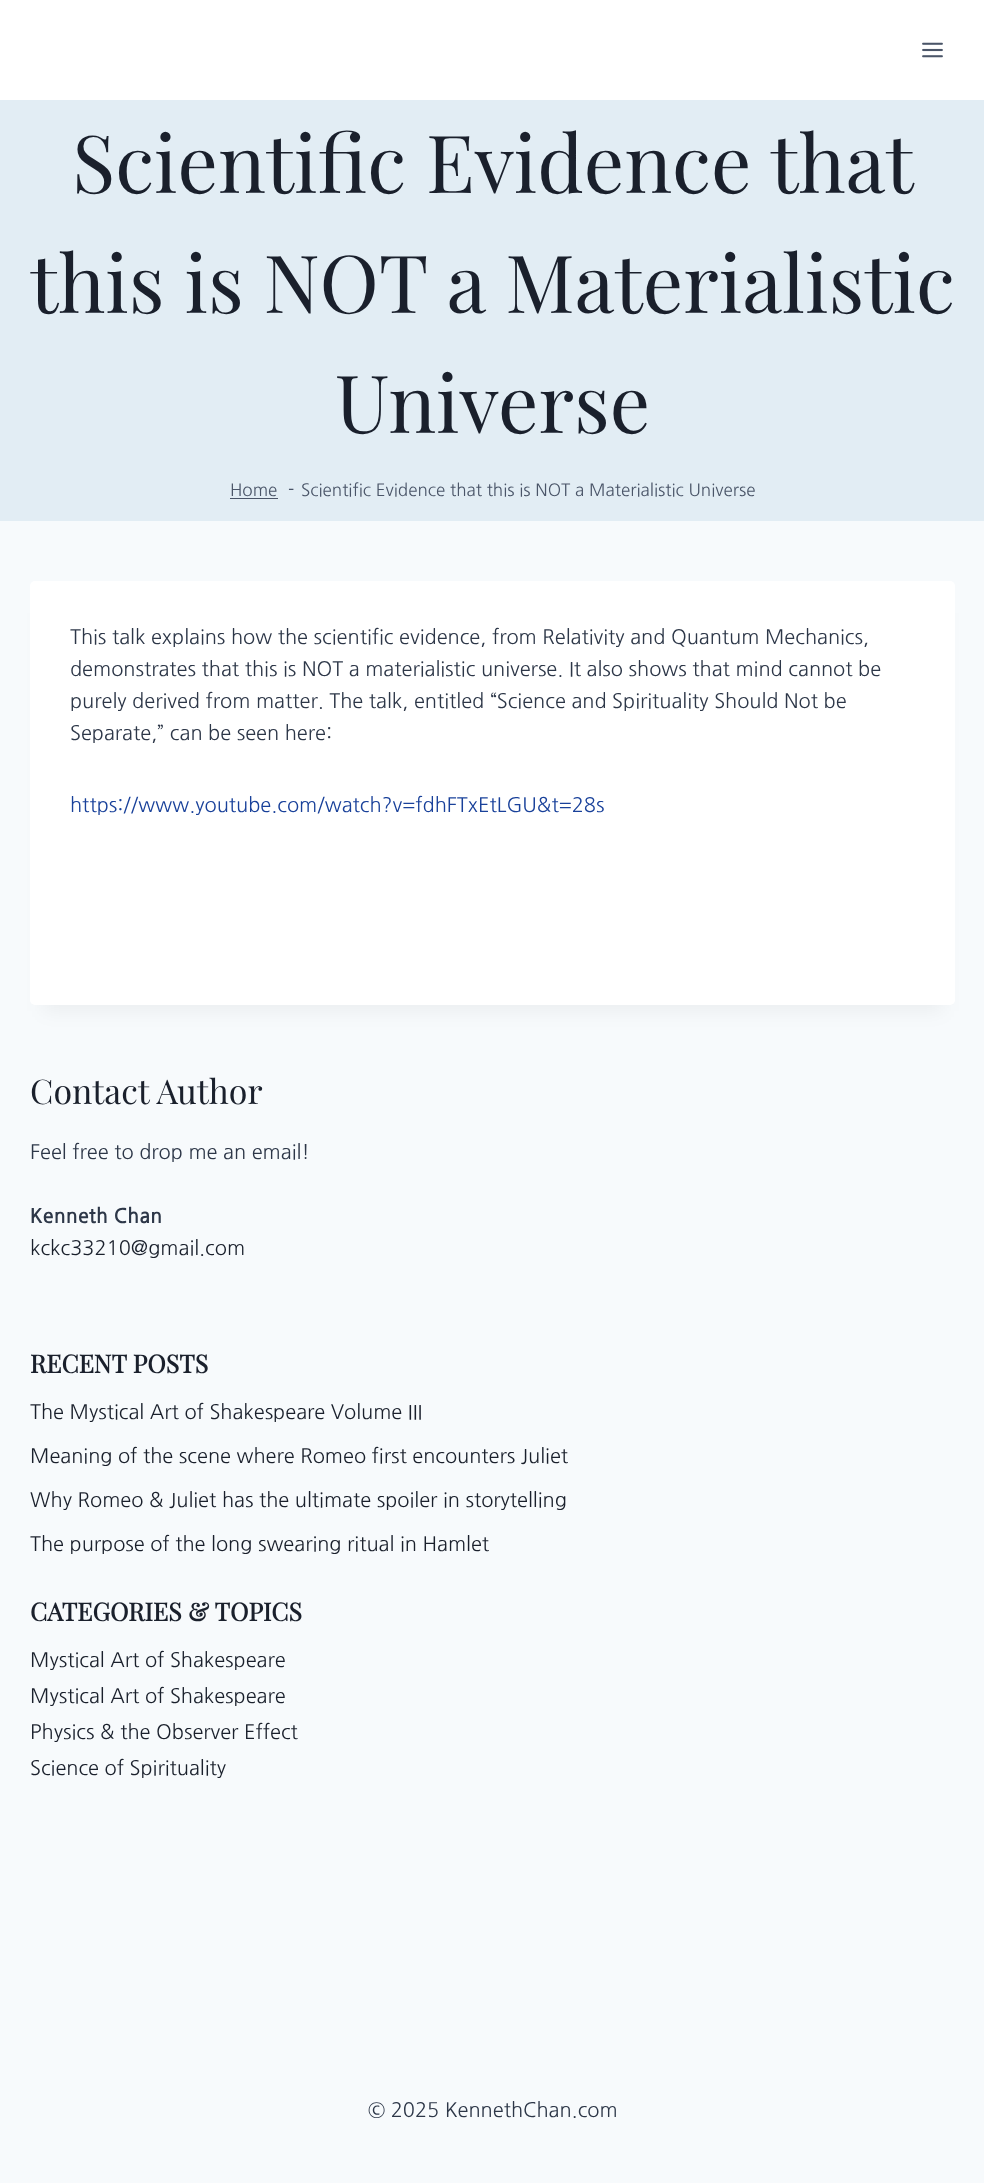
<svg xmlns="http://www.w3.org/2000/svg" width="984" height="2183">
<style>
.a{font:80px Playfair Display;fill:#1a202c}
.b{font:17px NanumGothic;fill:#4a5568}
.c{font:20px NanumGothic;fill:#2d3748}
.d{font:20px NanumGothic;fill:#19419a}
.e{font:34px Playfair Display;fill:#1a202c}
.f{font:bold 20px NanumGothic;fill:#2d3748}
.g{font:20px NanumGothic;fill:#1a202c}
.h{font:bold 25px Playfair Display;fill:#1a202c}
</style>
<rect width="100%" height="100%" fill="#f7fafc"/>
<path fill="#fff" d="M0 0h984v100H0z"/>
<image href="1.png" x="922" y="42" width="21" height="16"/>
<path fill="#e2edf4" d="M0 100h984v421H0z"/>
<path fill="#4a5568" d="M230 498h48v1H230z"/>
<path fill="#0000000d" filter="blur(9.5px)" d="M43 613h900v398H43z"/>
<rect fill="#fff" x="30" y="581" width="925" height="424" rx="5"/>
<text class="a" x="72" y="193">Scientific Evidence that</text>
<text class="a" x="30" y="313">this is NOT a Materialistic</text>
<text class="a" x="335" y="433">Universe</text>
<text class="b" x="230" y="496">Home</text>
<text class="b" x="288" y="496">-</text>
<text class="b" x="301" y="496">Scientific Evidence that this is NOT a Materialistic Universe</text>
<text class="c" x="70" y="644">This talk explains how the scientific evidence, from Relativity and Quantum Mechanics,</text>
<text class="c" x="70" y="676">demonstrates that this is NOT a materialistic universe. It also shows that mind cannot be</text>
<text class="c" x="70" y="708">purely derived from matter. The talk, entitled “Science and Spirituality Should Not be</text>
<text class="c" x="70" y="740">Separate,” can be seen here:</text>
<text class="d" x="70" y="812">https://www.youtube.com/watch?v=fdhFTxEtLGU&amp;t=28s</text>
<text class="e" x="30" y="1104">Contact Author</text>
<text class="c" x="30" y="1159">Feel free to drop me an email!</text>
<text class="f" x="30" y="1223">Kenneth Chan</text>
<text class="g" x="30" y="1255">kckc33210@gmail.com</text>
<text class="h" x="30" y="1373">RECENT POSTS</text>
<text class="g" x="30" y="1419">The Mystical Art of Shakespeare Volume III</text>
<text class="g" x="30" y="1463">Meaning of the scene where Romeo first encounters Juliet</text>
<text class="g" x="30" y="1507">Why Romeo &amp; Juliet has the ultimate spoiler in storytelling</text>
<text class="g" x="30" y="1551">The purpose of the long swearing ritual in Hamlet</text>
<text class="h" x="30" y="1621">CATEGORIES &amp; TOPICS</text>
<text class="g" x="30" y="1667">Mystical Art of Shakespeare</text>
<text class="g" x="30" y="1703">Mystical Art of Shakespeare</text>
<text class="g" x="30" y="1739">Physics &amp; the Observer Effect</text>
<text class="g" x="30" y="1775">Science of Spirituality</text>
<text class="c" x="368" y="2117">© 2025 KennethChan.com</text>
</svg>
